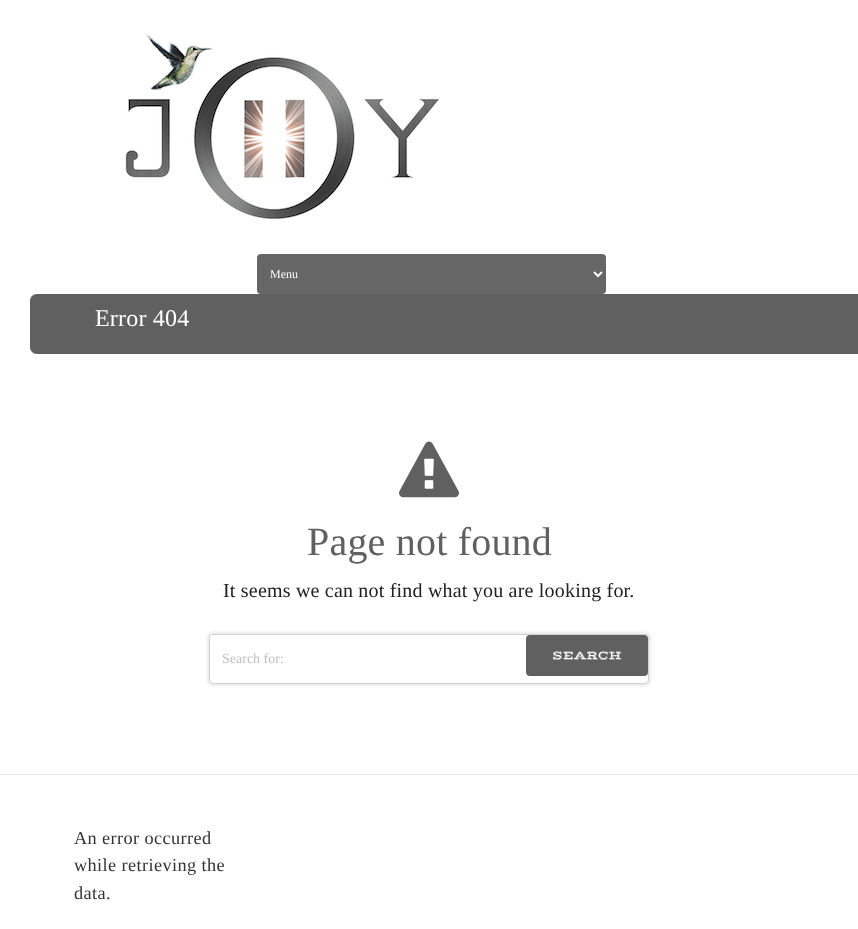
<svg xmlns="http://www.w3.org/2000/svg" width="858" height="929">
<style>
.a{font:12px Liberation Serif;fill:#fff}
.b{font:24px Liberation Serif;letter-spacing:0.2px;fill:#fff}
.c{font:40px Liberation Serif;letter-spacing:0.2px;fill:#606060}
.d{font:20px Liberation Serif;letter-spacing:0.2px;fill:#222}
.e{font:14px Liberation Serif;fill:#c0c0c0}
.f{font:12px Vast Shadow;fill:#fff}
.g{font:18.25px Liberation Serif;letter-spacing:0.4px;fill:#333}
</style>
<rect width="100%" height="100%" fill="#fff"/>
<image href="1.png" x="125" y="34" width="314" height="185"/>
<rect fill="#666" x="257" y="254" width="349" height="40" rx="4"/>
<path fill="none" stroke="#fff" stroke-width="2" d="M594 272l4 4l4-4"/>
<path fill="#606060" d="M37 294h821v60h-821c-4 0-7-3-7-7v-46c0-4 3-7 7-7z"/>
<image href="2.png" x="399" y="441" width="60" height="57"/>
<rect fill="#eaeaea" filter="blur(1.5px)" x="207" y="632" width="444" height="54" rx="6"/>
<rect fill="#fff" stroke="#d2d2d2" x="209.5" y="634.5" width="439" height="49" rx="3.5"/>
<rect fill="#606060" x="526" y="635" width="122" height="41" rx="4"/>
<path fill="#e7e7e7" d="M0 774h858v1H0z"/>
<text class="a" x="270" y="278">Menu</text>
<text class="b" x="95" y="326">Error 404</text>
<text class="c" x="307" y="555">Page not found</text>
<text class="d" x="223" y="597">It seems we can not find what you are looking for.</text>
<text class="e" x="222" y="663">Search for:</text>
<text class="f" x="552" y="659">SEARCH</text>
<text class="g" x="74" y="844">An error occurred</text>
<text class="g" x="74" y="871">while retrieving the</text>
<text class="g" x="74" y="899">data.</text>
</svg>
